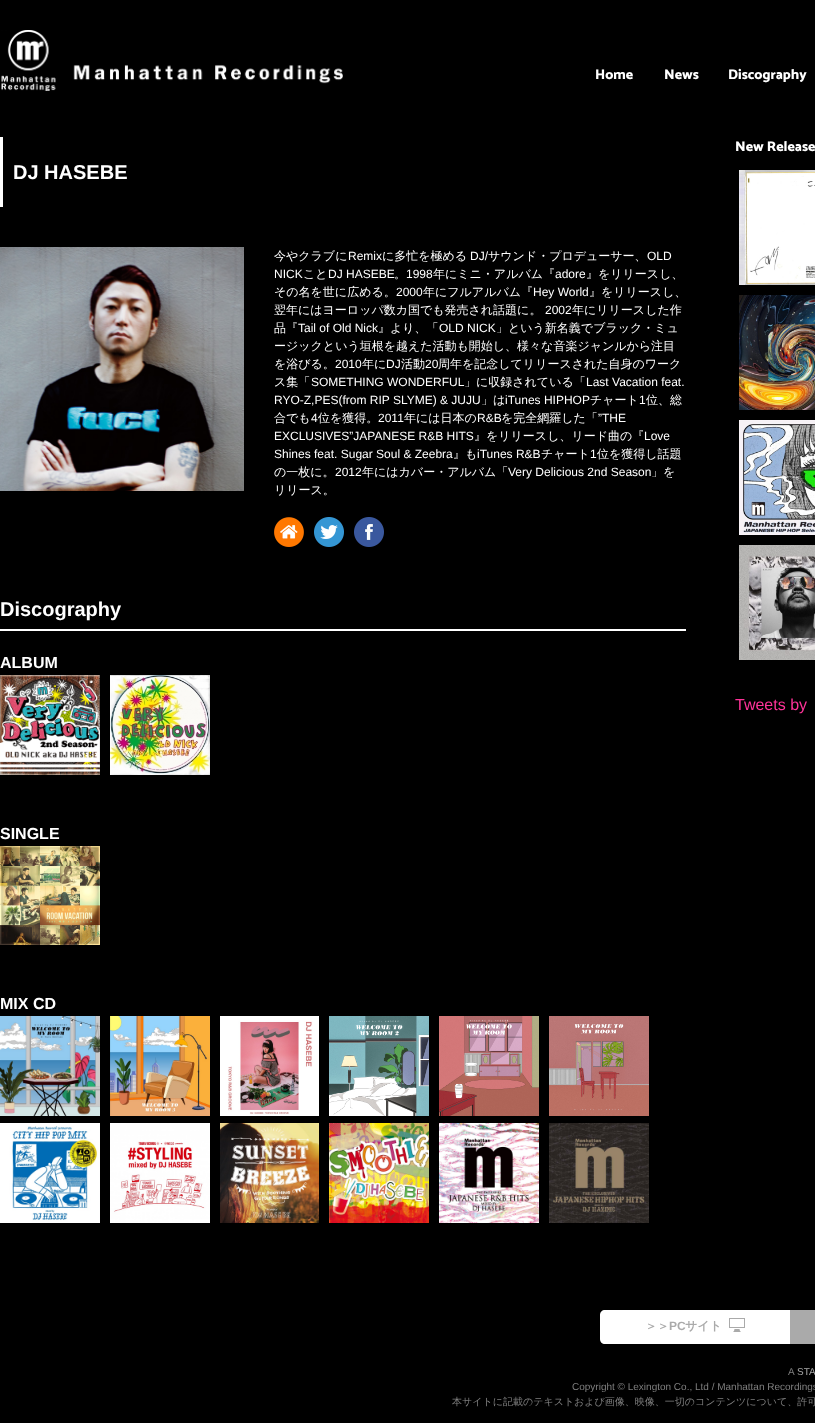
<svg xmlns="http://www.w3.org/2000/svg" width="815" height="1423">
<style>
.a{font:100 14px Catamaran;fill:#fff}
.b{font:bold 20px Liberation Sans;fill:#fff}
.c{font:500 12px WenQuanYi Zen Hei;fill:#fff}
.d{font:12px Liberation Sans;fill:#fff}
.e{font:bold 16px Liberation Sans;fill:#fff}
.f{font:16px Liberation Sans;fill:#f39}
.g{font:bold 12px WenQuanYi Zen Hei;fill:#aaa}
.h{font:bold 12px Liberation Sans;fill:#aaa}
.i{font:10px Liberation Sans;fill:#7f7f7f}
.j{font:10px Liberation Sans;fill:#aaa}
.k{font:500 10px WenQuanYi Zen Hei;fill:#7f7f7f}
</style>
<rect width="100%" height="100%" fill="#000"/>
<image href="1.png" x="1" y="30" width="342" height="61"/>
<path fill="#fff" d="M0 137h3v70H0z"/>
<image href="2.png" x="0" y="247" width="244" height="244"/>
<image href="3.png" x="274" y="517" width="30" height="30"/>
<image href="4.png" x="314" y="517" width="30" height="30"/>
<image href="5.png" x="354" y="517" width="30" height="30"/>
<path fill="#fff" d="M0 629h686v2H0z"/>
<image href="6.png" x="0" y="675" width="100" height="100"/>
<image href="7.png" x="110" y="675" width="100" height="100"/>
<image href="8.png" x="0" y="846" width="100" height="99"/>
<image href="9.png" x="0" y="1016" width="100" height="100"/>
<image href="10.png" x="110" y="1016" width="100" height="100"/>
<image href="11.png" x="220" y="1016" width="99" height="100"/>
<image href="12.png" x="329" y="1016" width="100" height="100"/>
<image href="13.png" x="439" y="1016" width="100" height="100"/>
<image href="14.png" x="549" y="1016" width="100" height="100"/>
<image href="15.png" x="0" y="1123" width="100" height="100"/>
<image href="16.png" x="110" y="1123" width="100" height="100"/>
<image href="17.png" x="220" y="1123" width="99" height="100"/>
<image href="18.png" x="329" y="1123" width="100" height="100"/>
<image href="19.png" x="439" y="1123" width="100" height="100"/>
<image href="20.png" x="549" y="1123" width="100" height="100"/>
<image href="21.png" x="739" y="170" width="76" height="115"/>
<image href="22.png" x="739" y="295" width="76" height="115"/>
<image href="23.png" x="739" y="420" width="76" height="115"/>
<image href="24.png" x="739" y="545" width="76" height="115"/>
<path fill="#fff" d="M605 1310h185v34h-185c-3 0-5-2-5-5v-24c0-3 2-5 5-5z"/>
<image href="25.png" x="729" y="1318" width="16" height="14"/>
<path fill="#aaa" d="M790 1310h25v34H790z"/>
<text class="a" x="595" y="79">Home</text>
<text class="a" x="664" y="79">News</text>
<text class="a" x="728" y="79">Discography</text>
<text class="b" x="13" y="179">DJ HASEBE</text>
<text class="c" x="274" y="260">今やクラブに</text>
<text class="d" x="348" y="260">Remix</text>
<text class="c" x="382" y="260">に多忙を極める</text>
<text class="d" x="470" y="260">DJ/</text>
<text class="c" x="488" y="260">サウンド・プロデューサー、</text>
<text class="d" x="647" y="260">OLD</text>
<text class="d" x="274" y="278">NICK</text>
<text class="c" x="303" y="278">こと</text>
<text class="d" x="328" y="278">DJ HASEBE</text>
<text class="c" x="394" y="278">。</text>
<text class="d" x="406" y="278">1998</text>
<text class="c" x="433" y="278">年にミニ・アルバム『</text>
<text class="d" x="555" y="278">adore</text>
<text class="c" x="586" y="278">』をリリースし、</text>
<text class="c" x="274" y="296">その名を世に広める。</text>
<text class="d" x="396" y="296">2000</text>
<text class="c" x="423" y="296">年にフルアルバム『</text>
<text class="d" x="533" y="296">Hey World</text>
<text class="c" x="589" y="296">』をリリースし、</text>
<text class="c" x="274" y="314">翌年にはヨーロッパ数カ国でも発売され話題に。</text>
<text class="d" x="545" y="314">2002</text>
<text class="c" x="572" y="314">年にリリースした作</text>
<text class="c" x="274" y="332">品『</text>
<text class="d" x="298" y="332">Tail of Old Nick</text>
<text class="c" x="378" y="332">』より、「</text>
<text class="d" x="439" y="332">OLD NICK</text>
<text class="c" x="496" y="332">」という新名義でブラック・ミュ</text>
<text class="c" x="274" y="350">ージックという垣根を越えた活動も開始し、様々な音楽ジャンルから注目</text>
<text class="c" x="274" y="368">を浴びる。</text>
<text class="d" x="335" y="368">2010</text>
<text class="c" x="362" y="368">年に</text>
<text class="d" x="386" y="368">DJ</text>
<text class="c" x="401" y="368">活動</text>
<text class="d" x="425" y="368">20</text>
<text class="c" x="438" y="368">周年を記念してリリースされた自身のワーク</text>
<text class="c" x="274" y="386">ス集「</text>
<text class="d" x="311" y="386">SOMETHING WONDERFUL</text>
<text class="c" x="464" y="386">」に収録されている「</text>
<text class="d" x="586" y="386">Last Vacation feat.</text>
<text class="d" x="274" y="404">RYO-Z,PES(from RIP SLYME) &amp; JUJU</text>
<text class="c" x="481" y="404">」は</text>
<text class="d" x="505" y="404">iTunes HIPHOP</text>
<text class="c" x="590" y="404">チャート</text>
<text class="d" x="639" y="404">1</text>
<text class="c" x="646" y="404">位、総</text>
<text class="c" x="274" y="422">合でも</text>
<text class="d" x="311" y="422">4</text>
<text class="c" x="318" y="422">位を獲得。</text>
<text class="d" x="378" y="422">2011</text>
<text class="c" x="404" y="422">年には日本の</text>
<text class="d" x="477" y="422">R&amp;B</text>
<text class="c" x="501" y="422">を完全網羅した「</text>
<text class="d" x="598" y="422">”THE</text>
<text class="d" x="274" y="440">EXCLUSIVES”JAPANESE R&amp;B HITS</text>
<text class="c" x="474" y="440">』をリリースし、リード曲の『</text>
<text class="d" x="644" y="440">Love</text>
<text class="d" x="274" y="458">Shines feat. Sugar Soul &amp; Zeebra</text>
<text class="c" x="453" y="458">』も</text>
<text class="d" x="477" y="458">iTunes R&amp;B</text>
<text class="c" x="541" y="458">チャート</text>
<text class="d" x="590" y="458">1</text>
<text class="c" x="597" y="458">位を獲得し話題</text>
<text class="c" x="274" y="476">の一枚に。</text>
<text class="d" x="335" y="476">2012</text>
<text class="c" x="362" y="476">年にはカバー・アルバム「</text>
<text class="d" x="508" y="476">Very Delicious 2nd Season</text>
<text class="c" x="651" y="476">」を</text>
<text class="c" x="274" y="494">リリース。</text>
<text class="b" x="0" y="616">Discography</text>
<text class="e" x="0" y="668">ALBUM</text>
<text class="e" x="0" y="839">SINGLE</text>
<text class="e" x="0" y="1009">MIX CD</text>
<text class="a" x="735" y="151">New Release</text>
<text class="f" x="735" y="710">Tweets by</text>
<text class="g" x="645" y="1330">＞＞</text>
<text class="h" x="669" y="1330">PC</text>
<text class="g" x="685" y="1330">サイト</text>
<text class="i" x="788" y="1375">A</text>
<text class="j" x="797" y="1375">STA</text>
<text class="i" x="572" y="1390">Copyright © Lexington Co., Ltd / Manhattan Recordings</text>
<text class="k" x="452" y="1405">本サイトに記載のテキストおよび画像、映像、一切のコンテンツについて、許可</text>
</svg>
